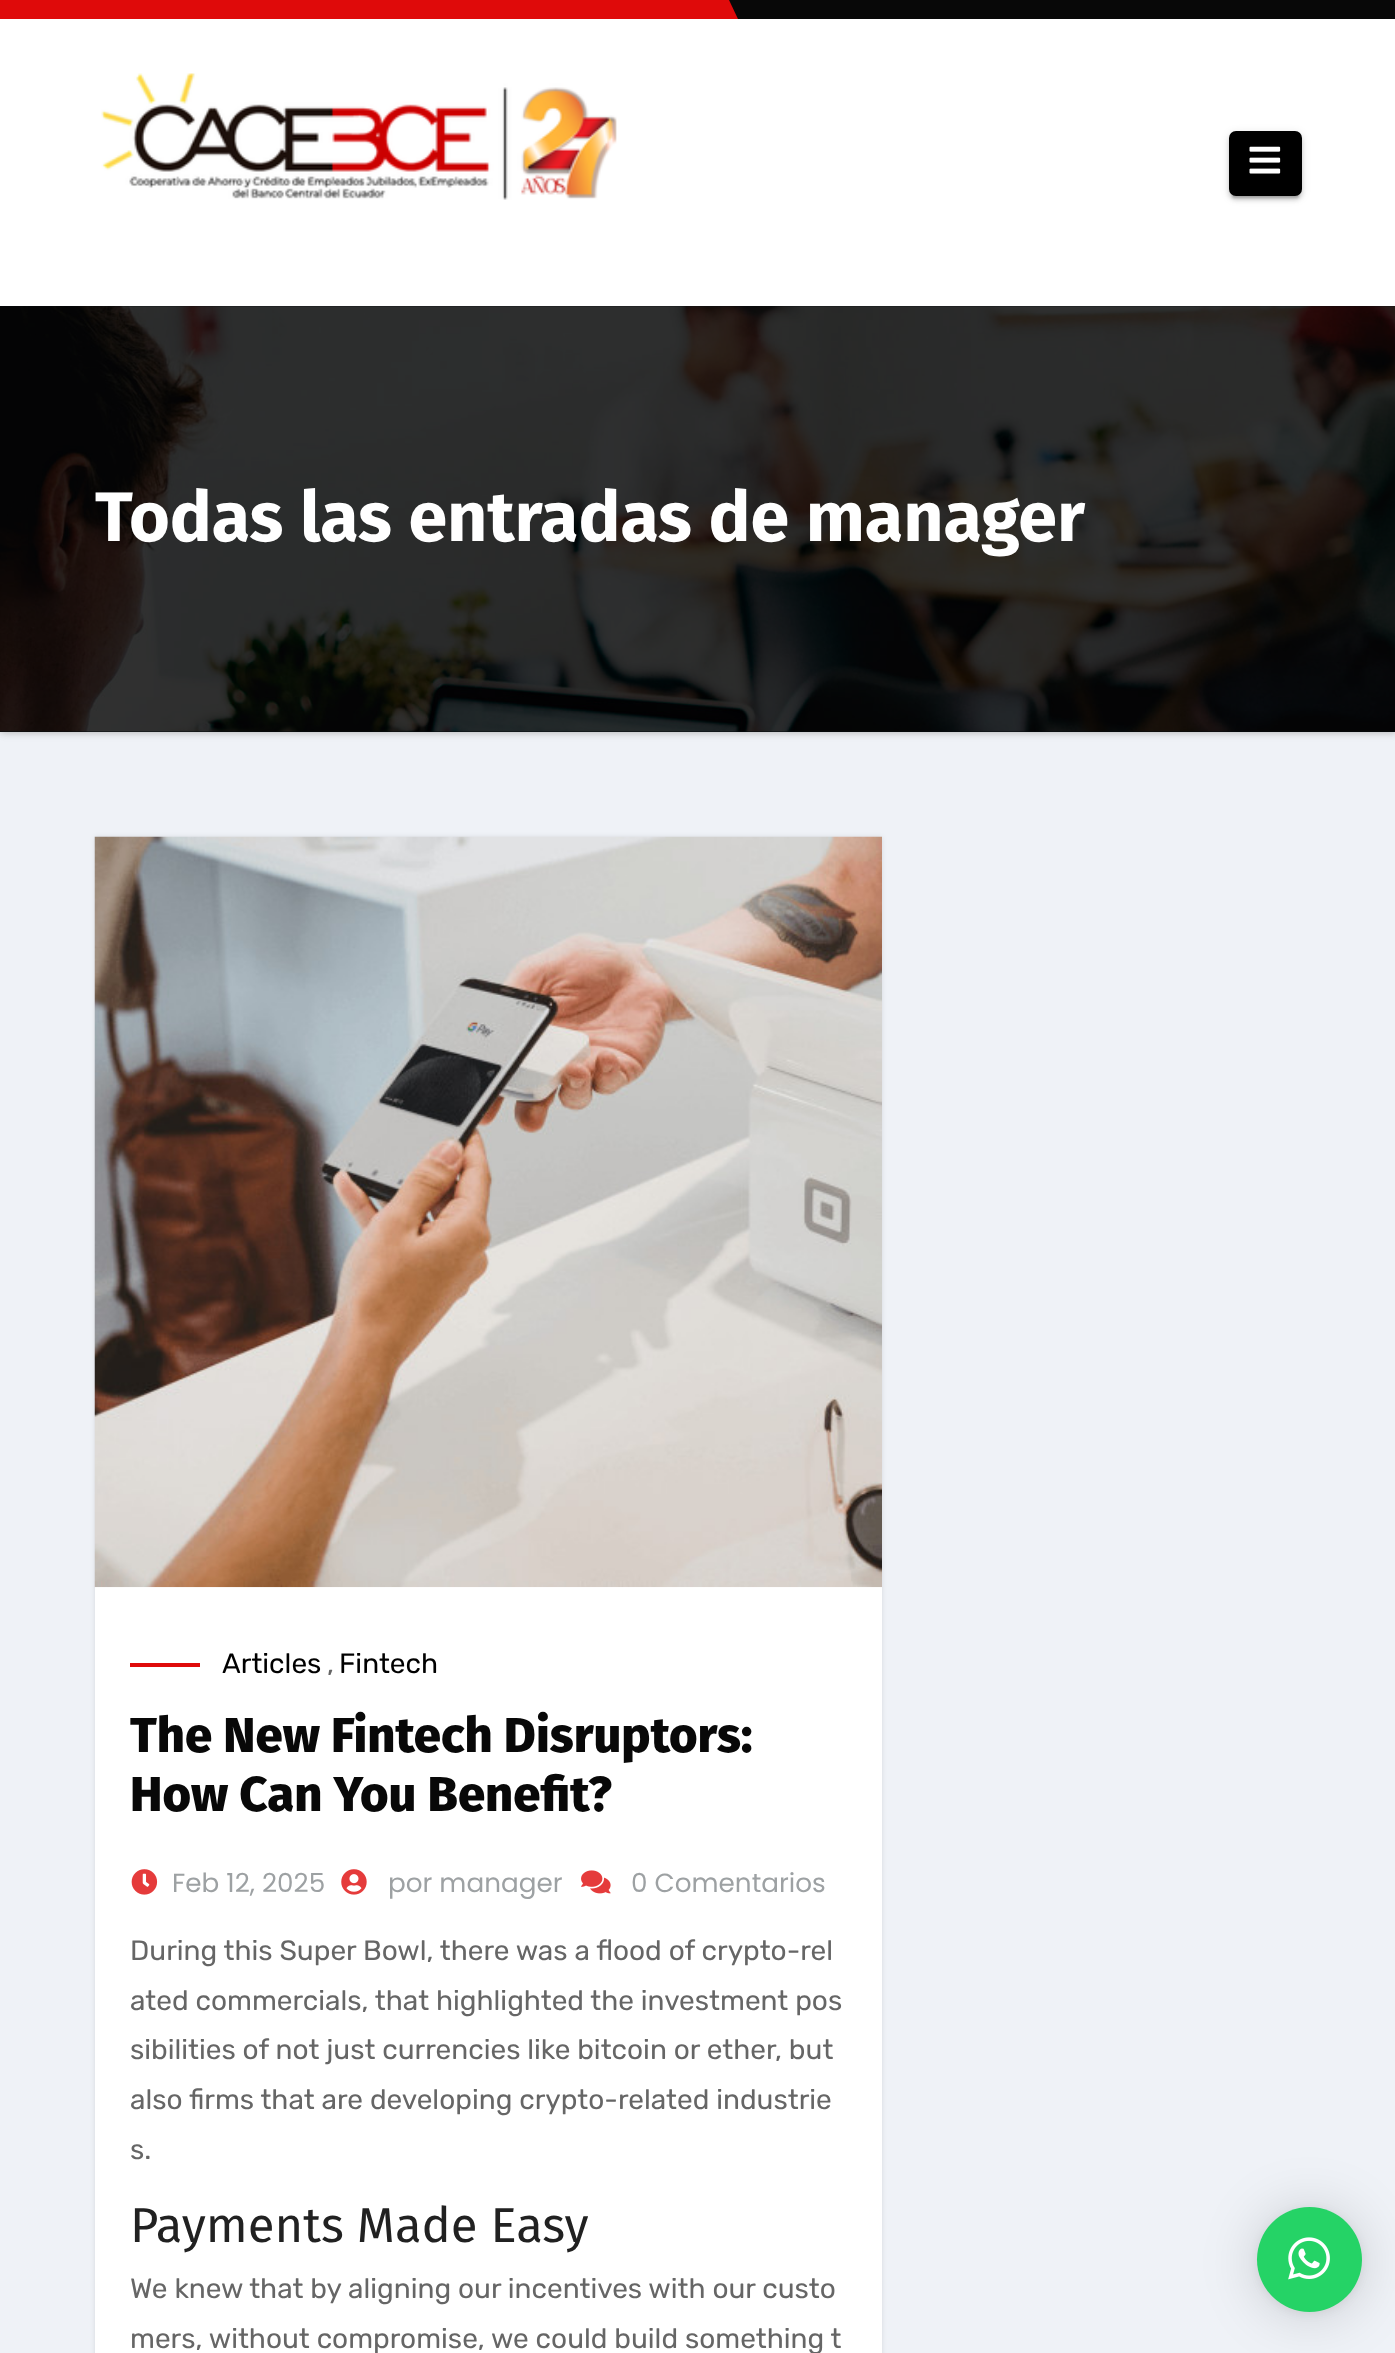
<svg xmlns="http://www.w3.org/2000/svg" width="1395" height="2353">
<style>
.a{font:bold 70px Fira Sans;fill:#fff}
.b{font:28px Rubik;fill:#000}
.c{font:28px Rubik;fill:#666}
.d{font:800 49px Fira Sans;fill:#080808}
.e{font:26.25px Poppins;fill:#9da1a3}
.f{font:49px Fira Sans;fill:#212121}
</style>
<rect width="100%" height="100%" fill="#eff2f7"/>
<path fill="#080808" d="M729 0h666v19H729z"/>
<path fill="#df0a0a" d="M-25 0h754l9 19h-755z"/>
<path fill="#aaa" filter="blur(4.5px)" d="M0 306h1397v426H0z"/>
<path fill="#fff" d="M0 19h1395v287H0z"/>
<image href="1.png" x="101" y="73" width="516" height="127"/>
<rect fill="#0000001f" filter="blur(4.5px)" x="1229" y="133" width="73" height="65" rx="7"/>
<rect fill="#00000033" filter="blur(1px)" x="1232" y="140" width="67" height="58" rx="2.5"/>
<rect fill="#00000024" filter="blur(2px)" x="1229" y="135" width="73" height="65" rx="7"/>
<rect fill="#000" x="1229" y="131" width="73" height="65" rx="7"/>
<image href="2.png" x="1249" y="146" width="32" height="28"/>
<path fill="#143745" d="M0 306h1395v426H0z"/>
<image href="3.png" x="0" y="306" width="1395" height="426"/>
<path fill="#000000cc" d="M0 306h1395v426H0z"/>
<path fill="#0000001a" filter="blur(2.5px)" d="M95 837h787v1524H95z"/>
<path fill="#fff" d="M95 1587h787v766H95z"/>
<image href="4.png" x="94" y="836" width="788" height="752"/>
<path fill="#df0a0a" d="M130 1663h70v4H130z"/>
<image href="5.png" x="131" y="1869" width="27" height="26"/>
<image href="6.png" x="341" y="1869" width="26" height="26"/>
<image href="7.png" x="581" y="1870" width="30" height="24"/>
<rect fill="#00000029" filter="blur(28px)" x="1257" y="2210" width="105" height="105" rx="52.5"/>
<rect fill="#0000000f" filter="blur(5px)" x="1257" y="2209" width="105" height="105" rx="52.5"/>
<circle fill="#25d366" cx="1309.5" cy="2259.5" r="52.5"/>
<image href="8.png" x="1288" y="2237" width="42" height="43"/>
<text class="a" x="95" y="541">Todas las entradas de manager</text>
<text class="b" x="222" y="1673">Articles</text>
<text class="b" x="339" y="1673">Fintech</text>
<text class="c" x="327" y="1673">,</text>
<text class="d" x="130" y="1752">The New Fintech Disruptors:</text>
<text class="d" x="130" y="1811">How Can You Benefit?</text>
<text class="e" x="172" y="1892">Feb 12, 2025</text>
<text class="e" x="388" y="1892">por manager</text>
<text class="e" x="631" y="1892">0 Comentarios</text>
<text class="c" x="130" y="1960">During this Super Bowl, there was a flood of crypto-rel</text>
<text class="c" x="130" y="2010">ated commercials, that highlighted the investment pos</text>
<text class="c" x="130" y="2059">sibilities of not just currencies like bitcoin or ether, but</text>
<text class="c" x="130" y="2109">also firms that are developing crypto-related industrie</text>
<text class="c" x="130" y="2159">s.</text>
<text class="f" x="130" y="2242">Payments Made Easy</text>
<text class="c" x="130" y="2298">We knew that by aligning our incentives with our custo</text>
<text class="c" x="130" y="2348">mers, without compromise, we could build something t</text>
</svg>
